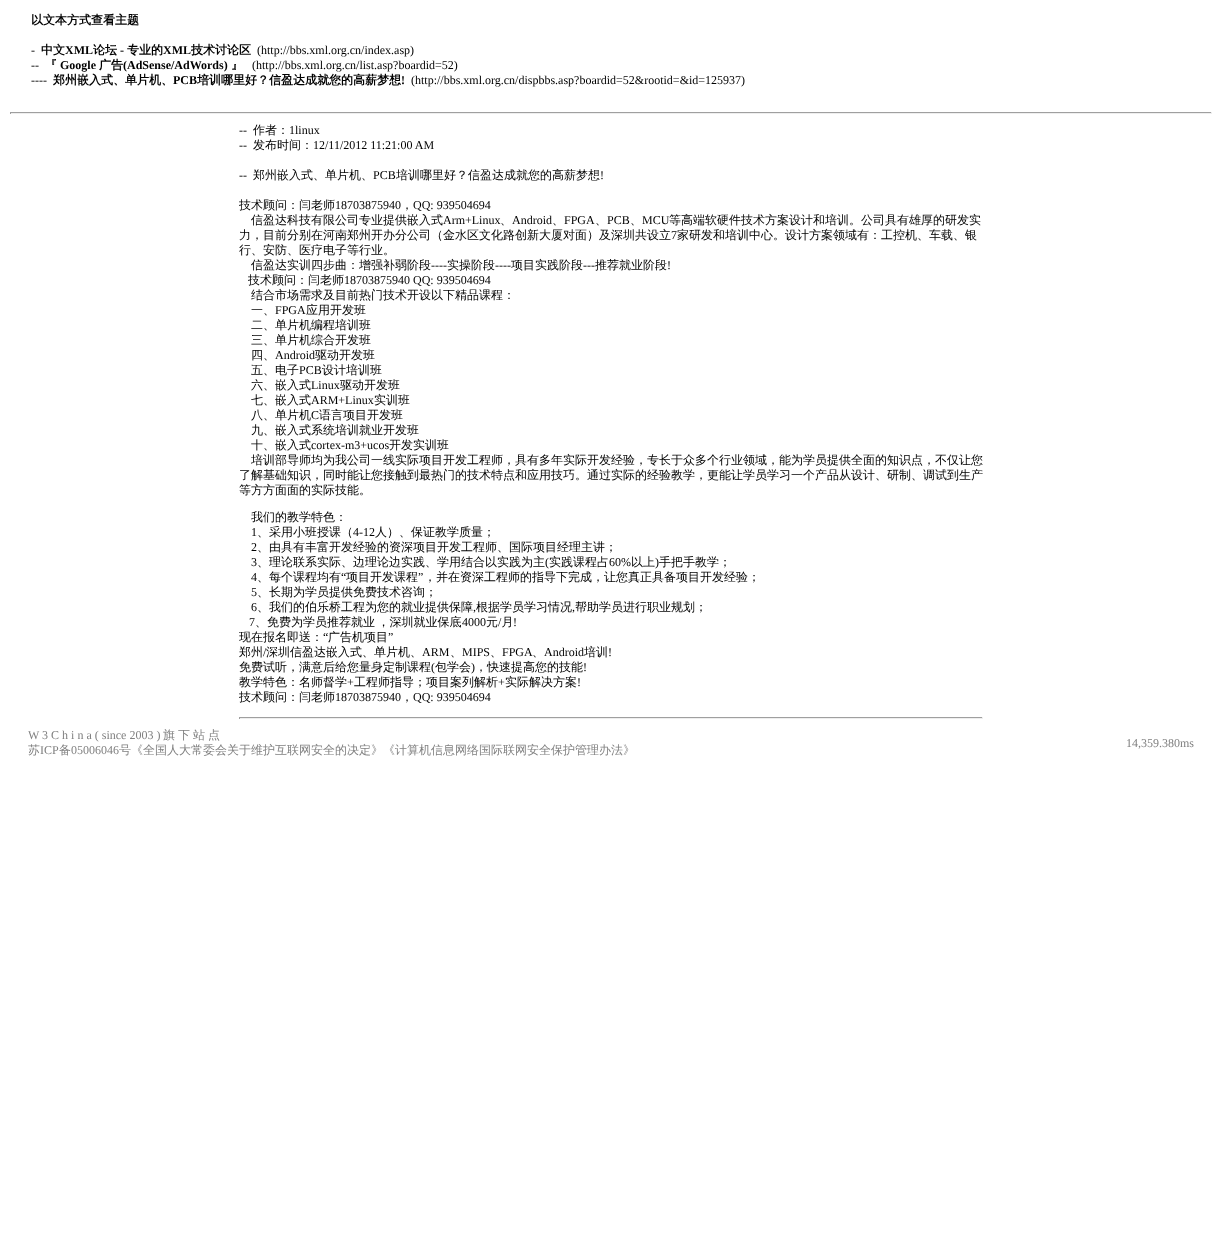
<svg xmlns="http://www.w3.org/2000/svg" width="1222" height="1250">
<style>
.a{font:bold 12px WenQuanYi Zen Hei;fill:#000}
.b{font:12px Liberation Serif;fill:#000}
.c{font:bold 12px Liberation Serif;fill:#000}
.d{font:500 12px WenQuanYi Zen Hei;fill:#000}
.e{font:12px Liberation Serif;fill:#808080}
.f{font:500 12px WenQuanYi Zen Hei;fill:#808080}
</style>
<rect width="100%" height="100%" fill="#fff"/>
<path fill="#9f9f9f" d="M10 112h1202v1H10z"/>
<path fill="#eee" d="M1211 112h1v2H1211z"/>
<path fill="#eee" d="M10 113h1202v1H10z"/>
<path fill="#9f9f9f" d="M10 112h1v2H10z"/>
<path fill="#9f9f9f" d="M239 717h744v1H239z"/>
<path fill="#eee" d="M982 717h1v2H982z"/>
<path fill="#eee" d="M239 718h744v1H239z"/>
<path fill="#9f9f9f" d="M239 717h1v2H239z"/>
<text class="a" x="31" y="24">以文本方式查看主题</text>
<text class="b" x="31" y="54">-</text>
<text class="a" x="41" y="54">中文</text>
<text class="c" x="65" y="54">XML</text>
<text class="a" x="93" y="54">论坛</text>
<text class="c" x="120" y="54">-</text>
<text class="a" x="127" y="54">专业的</text>
<text class="c" x="163" y="54">XML</text>
<text class="a" x="191" y="54">技术讨论区</text>
<text class="b" x="257" y="54">(http://bbs.xml.org.cn/index.asp)</text>
<text class="b" x="31" y="69">--</text>
<text class="a" x="45" y="69">『</text>
<text class="c" x="60" y="69">Google</text>
<text class="a" x="99" y="69">广告</text>
<text class="c" x="123" y="69">(AdSense/AdWords)</text>
<text class="a" x="231" y="69">』</text>
<text class="b" x="252" y="69">(http://bbs.xml.org.cn/list.asp?boardid=52)</text>
<text class="b" x="31" y="84">----</text>
<text class="a" x="53" y="84">郑州嵌入式、单片机、</text>
<text class="c" x="173" y="84">PCB</text>
<text class="a" x="197" y="84">培训哪里好？信盈达成就您的高薪梦想</text>
<text class="c" x="401" y="84">!</text>
<text class="b" x="411" y="84">(http://bbs.xml.org.cn/dispbbs.asp?boardid=52&amp;rootid=&amp;id=125937)</text>
<text class="b" x="239" y="134">--</text>
<text class="d" x="253" y="134">作者：</text>
<text class="b" x="289" y="134">1linux</text>
<text class="b" x="239" y="149">--</text>
<text class="d" x="253" y="149">发布时间：</text>
<text class="b" x="313" y="149">12/11/2012 11:21:00 AM</text>
<text class="b" x="239" y="179">--</text>
<text class="d" x="253" y="179">郑州嵌入式、单片机、</text>
<text class="b" x="373" y="179">PCB</text>
<text class="d" x="396" y="179">培训哪里好？信盈达成就您的高薪梦想</text>
<text class="b" x="600" y="179">!</text>
<text class="d" x="239" y="209">技术顾问：闫老师</text>
<text class="b" x="335" y="209">18703875940</text>
<text class="d" x="401" y="209">，</text>
<text class="b" x="413" y="209">QQ: 939504694</text>
<text class="d" x="251" y="224">信盈达科技有限公司专业提供嵌入式</text>
<text class="b" x="443" y="224">Arm+Linux</text>
<text class="d" x="500" y="224">、</text>
<text class="b" x="512" y="224">Android</text>
<text class="d" x="552" y="224">、</text>
<text class="b" x="564" y="224">FPGA</text>
<text class="d" x="595" y="224">、</text>
<text class="b" x="607" y="224">PCB</text>
<text class="d" x="630" y="224">、</text>
<text class="b" x="642" y="224">MCU</text>
<text class="d" x="669" y="224">等高端软硬件技术方案设计和培训。公司具有雄厚的研发实</text>
<text class="d" x="239" y="239">力，目前分别在河南郑州开办分公司（金水区文化路创新大厦对面）及深圳共设立</text>
<text class="b" x="671" y="239">7</text>
<text class="d" x="677" y="239">家研发和培训中心。设计方案领域有：工控机、车载、银</text>
<text class="d" x="239" y="254">行、安防、医疗电子等行业。</text>
<text class="d" x="251" y="269">信盈达实训四步曲：增强补弱阶段</text>
<text class="b" x="431" y="269">----</text>
<text class="d" x="447" y="269">实操阶段</text>
<text class="b" x="495" y="269">----</text>
<text class="d" x="511" y="269">项目实践阶段</text>
<text class="b" x="583" y="269">---</text>
<text class="d" x="595" y="269">推荐就业阶段</text>
<text class="b" x="667" y="269">!</text>
<text class="d" x="248" y="284">技术顾问：闫老师</text>
<text class="b" x="344" y="284">18703875940 QQ: 939504694</text>
<text class="d" x="251" y="299">结合市场需求及目前热门技术开设以下精品课程：</text>
<text class="d" x="251" y="314">一、</text>
<text class="b" x="275" y="314">FPGA</text>
<text class="d" x="306" y="314">应用开发班</text>
<text class="d" x="251" y="329">二、单片机编程培训班</text>
<text class="d" x="251" y="344">三、单片机综合开发班</text>
<text class="d" x="251" y="359">四、</text>
<text class="b" x="275" y="359">Android</text>
<text class="d" x="315" y="359">驱动开发班</text>
<text class="d" x="251" y="374">五、电子</text>
<text class="b" x="299" y="374">PCB</text>
<text class="d" x="322" y="374">设计培训班</text>
<text class="d" x="251" y="389">六、嵌入式</text>
<text class="b" x="311" y="389">Linux</text>
<text class="d" x="340" y="389">驱动开发班</text>
<text class="d" x="251" y="404">七、嵌入式</text>
<text class="b" x="311" y="404">ARM+Linux</text>
<text class="d" x="374" y="404">实训班</text>
<text class="d" x="251" y="419">八、单片机</text>
<text class="b" x="311" y="419">C</text>
<text class="d" x="319" y="419">语言项目开发班</text>
<text class="d" x="251" y="434">九、嵌入式系统培训就业开发班</text>
<text class="d" x="251" y="449">十、嵌入式</text>
<text class="b" x="311" y="449">cortex-m3+ucos</text>
<text class="d" x="389" y="449">开发实训班</text>
<text class="d" x="251" y="464">培训部导师均为我公司一线实际项目开发工程师，具有多年实际开发经验，专长于众多个行业领域，能为学员提供全面的知识点，不仅让您</text>
<text class="d" x="239" y="479">了解基础知识，同时能让您接触到最热门的技术特点和应用技巧。通过实际的经验教学，更能让学员学习一个产品从设计、研制、调试到生产</text>
<text class="d" x="239" y="494">等方方面面的实际技能。</text>
<text class="d" x="251" y="521">我们的教学特色：</text>
<text class="b" x="251" y="536">1</text>
<text class="d" x="257" y="536">、采用小班授课（</text>
<text class="b" x="353" y="536">4-12</text>
<text class="d" x="375" y="536">人）、保证教学质量；</text>
<text class="b" x="251" y="551">2</text>
<text class="d" x="257" y="551">、由具有丰富开发经验的资深项目开发工程师、国际项目经理主讲；</text>
<text class="b" x="251" y="566">3</text>
<text class="d" x="257" y="566">、理论联系实际、边理论边实践、学用结合以实践为主</text>
<text class="b" x="545" y="566">(</text>
<text class="d" x="549" y="566">实践课程占</text>
<text class="b" x="609" y="566">60%</text>
<text class="d" x="631" y="566">以上</text>
<text class="b" x="655" y="566">)</text>
<text class="d" x="659" y="566">手把手教学；</text>
<text class="b" x="251" y="581">4</text>
<text class="d" x="257" y="581">、每个课程均有</text>
<text class="b" x="341" y="581">“</text>
<text class="d" x="346" y="581">项目开发课程</text>
<text class="b" x="418" y="581">”</text>
<text class="d" x="424" y="581">，并在资深工程师的指导下完成，让您真正具备项目开发经验；</text>
<text class="b" x="251" y="596">5</text>
<text class="d" x="257" y="596">、长期为学员提供免费技术咨询；</text>
<text class="b" x="251" y="611">6</text>
<text class="d" x="257" y="611">、我们的伯乐桥工程为您的就业提供保障</text>
<text class="b" x="473" y="611">,</text>
<text class="d" x="476" y="611">根据学员学习情况</text>
<text class="b" x="572" y="611">,</text>
<text class="d" x="575" y="611">帮助学员进行职业规划；</text>
<text class="b" x="249" y="626">7</text>
<text class="d" x="255" y="626" word-spacing="-1">、免费为学员推荐就业 ，深圳就业保底</text>
<text class="b" x="462" y="626">4000</text>
<text class="d" x="486" y="626">元 月</text>
<text class="b" x="498" y="626">/</text>
<text class="b" x="513" y="626">!</text>
<text class="d" x="239" y="641">现在报名即送：</text>
<text class="b" x="323" y="641">“</text>
<text class="d" x="328" y="641">广告机项目</text>
<text class="b" x="388" y="641">”</text>
<text class="d" x="239" y="656">郑州</text>
<text class="b" x="263" y="656">/</text>
<text class="d" x="266" y="656">深圳信盈达嵌入式、单片机、</text>
<text class="b" x="422" y="656">ARM</text>
<text class="d" x="450" y="656">、</text>
<text class="b" x="462" y="656">MIPS</text>
<text class="d" x="490" y="656">、</text>
<text class="b" x="502" y="656">FPGA</text>
<text class="d" x="532" y="656">、</text>
<text class="b" x="544" y="656">Android</text>
<text class="d" x="584" y="656">培训</text>
<text class="b" x="608" y="656">!</text>
<text class="d" x="239" y="671">免费试听，满意后给您量身定制课程</text>
<text class="b" x="431" y="671">(</text>
<text class="d" x="435" y="671">包学会</text>
<text class="b" x="471" y="671">)</text>
<text class="d" x="475" y="671">，快速提高您的技能</text>
<text class="b" x="583" y="671">!</text>
<text class="d" x="239" y="686">教学特色：名师督学</text>
<text class="b" x="347" y="686">+</text>
<text class="d" x="354" y="686">工程师指导；项目案列解析</text>
<text class="b" x="498" y="686">+</text>
<text class="d" x="505" y="686">实际解决方案</text>
<text class="b" x="577" y="686">!</text>
<text class="d" x="239" y="701">技术顾问：闫老师</text>
<text class="b" x="335" y="701">18703875940</text>
<text class="d" x="401" y="701">，</text>
<text class="b" x="413" y="701">QQ: 939504694</text>
<text class="e" x="28" y="739">W 3 C h i n a ( since 2003 )</text>
<text class="f" x="163" y="739">旗</text>
<text class="f" x="178" y="739">下</text>
<text class="f" x="193" y="739">站</text>
<text class="f" x="208" y="739">点</text>
<text class="f" x="28" y="754">苏</text>
<text class="e" x="40" y="754">ICP</text>
<text class="f" x="59" y="754">备</text>
<text class="e" x="71" y="754">05006046</text>
<text class="f" x="119" y="754">号《全国人大常委会关于维护互联网安全的决定》《计算机信息网络国际联网安全保护管理办法》</text>
<text class="e" x="1126" y="747">14,359.380ms</text>
</svg>
